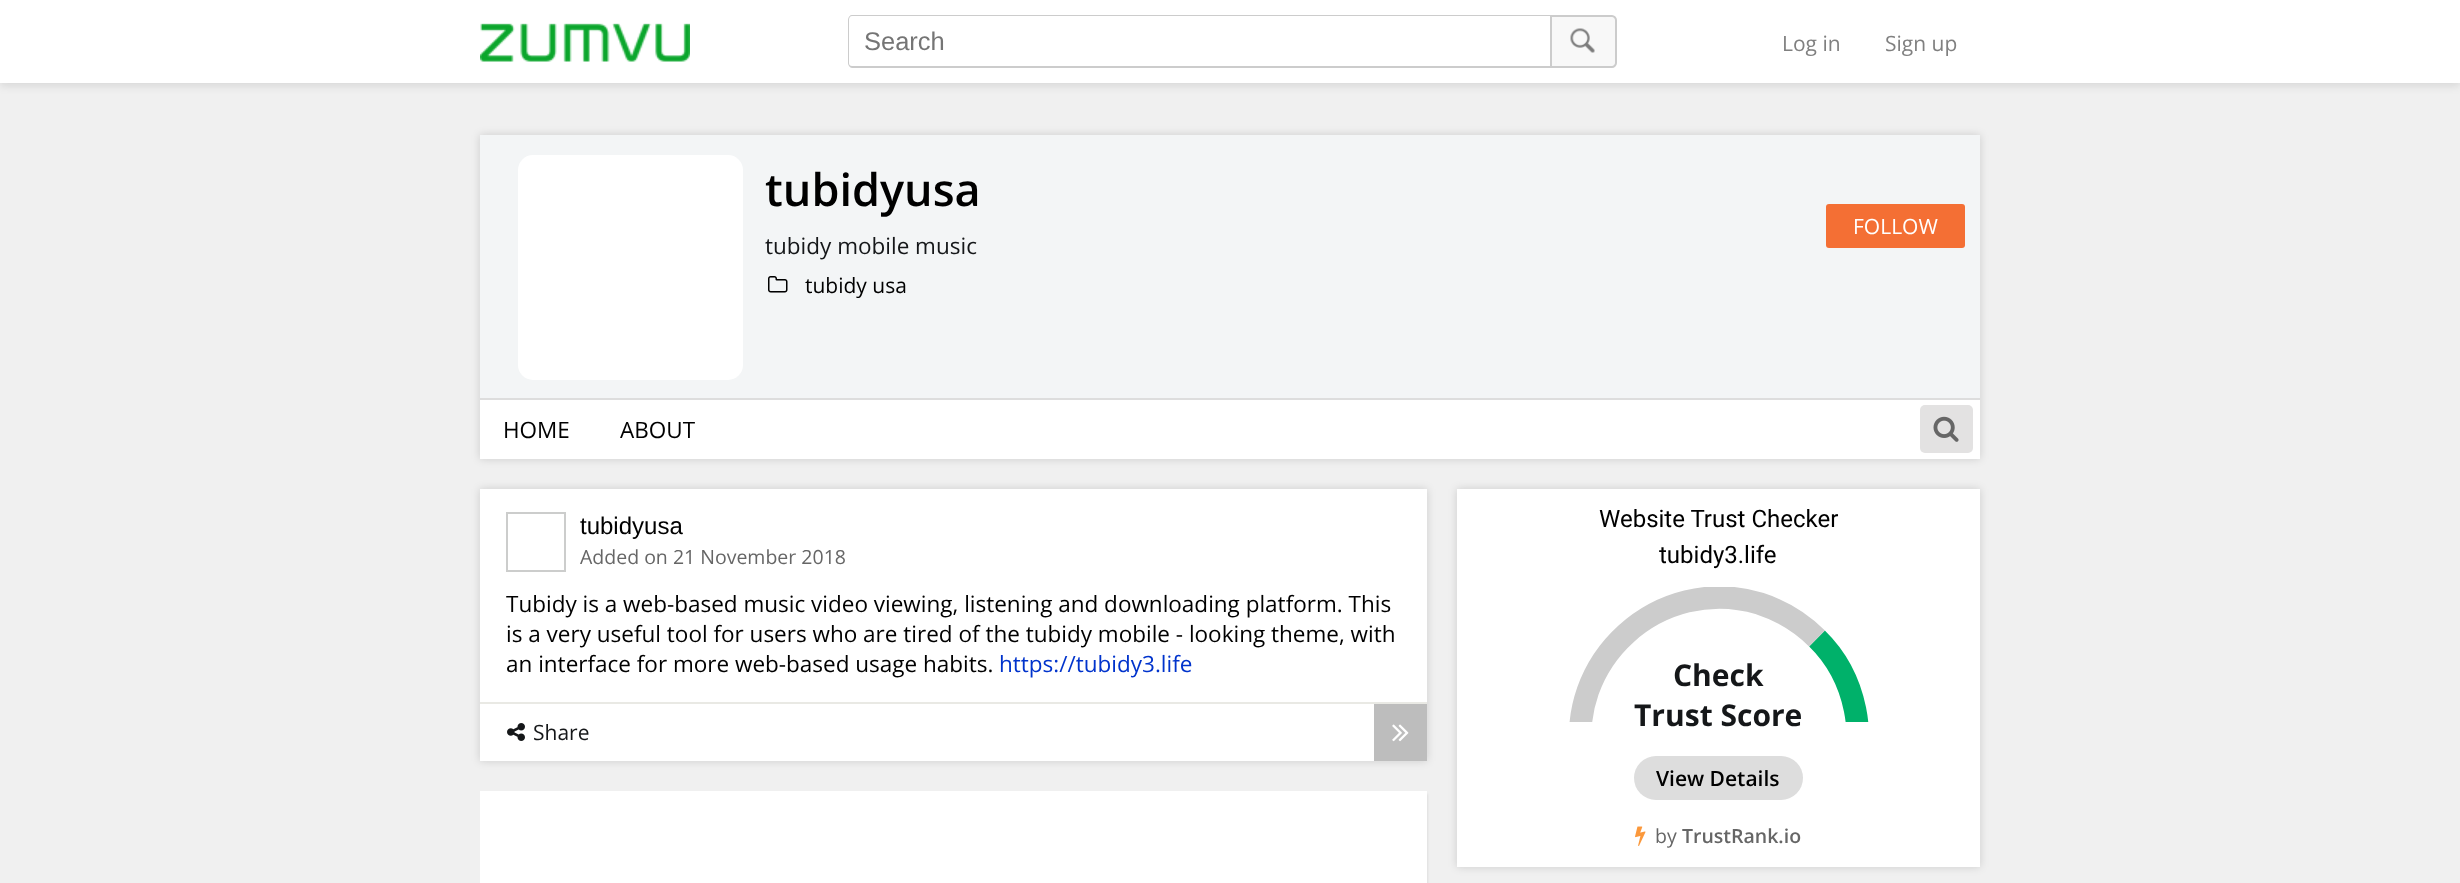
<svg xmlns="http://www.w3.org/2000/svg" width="2460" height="883">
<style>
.a{font:25.5px Liberation Sans;fill:#757575}
.b{font:21px Open Sans;fill:#808080}
.c{font:600 45px Open Sans;fill:#000}
.d{font:21px Open Sans;fill:#fff}
.e{font:22.5px Open Sans;fill:#151719}
.f{font:21px Open Sans;fill:#000}
.g{font:22.5px Open Sans;fill:#000}
.h{font:24px Liberation Sans;fill:#000}
.i{font:19.5px Open Sans;fill:#666}
.j{font:22.5px Open Sans;fill:#03c}
.k{font:21px Open Sans;fill:#151719}
.l{font:24px Roboto;fill:#000}
.m{font:bold 30px Open Sans;fill:#151719}
.n{font:600 21px Open Sans;fill:#000}
.o{font:600 19.5px Open Sans;fill:#666}
</style>
<defs>
<clipPath id="clip1"><path d="M1569 587h300v135H1569z"/></clipPath>
</defs>
<rect width="100%" height="100%" fill="#f0f0f0"/>
<path fill="#0000001a" filter="blur(4px)" d="M0 3h2460v83H0z"/>
<path fill="#fff" d="M0 0h2460v83H0z"/>
<image href="1.png" x="480" y="23" width="210" height="39"/>
<path fill="#ccc" fill-rule="evenodd" d="M852 15h698v53h-698c-2 0-4-3-4-5v-43c0-3 2-5 4-5zm0 1h698v50h-698c-2 0-3-1-3-3v-43c0-2 1-4 3-4z"/>
<path fill="#f8f8f8" stroke="#ccc" stroke-width="2" d="M1551 16h61c2 0 4 2 4 4v43c0 2-2 4-4 4h-61z"/>
<image href="2.png" x="1570" y="28" width="25" height="25"/>
<path fill="#00000026" filter="blur(4.5px)" d="M480 135h1500v324H480z"/>
<path fill="#f3f5f6" d="M480 135h1500v263H480z"/>
<rect fill="#fff" x="518" y="155" width="225" height="225" rx="15"/>
<rect fill="#f46f34" x="1826" y="204" width="139" height="44" rx="3"/>
<image href="3.png" x="768" y="276" width="20" height="17"/>
<path fill="#fff" d="M480 400h1500v59H480z"/>
<path fill="#ddd" d="M480 398h1500v2H480z"/>
<rect fill="#e3e2e2" x="1920" y="405" width="53" height="48" rx="5"/>
<image href="4.png" x="1933" y="416" width="26" height="26"/>
<path fill="#00000026" filter="blur(4.5px)" d="M480 489h947v272H480z"/>
<path fill="#fff" d="M480 489h947v272H480z"/>
<path fill="none" stroke="#cccdcc" stroke-width="2" d="M507 513h58v58H507z"/>
<path fill="#e9e9e4" d="M480 702h947v2H480z"/>
<image href="5.png" x="507" y="723" width="18" height="18"/>
<path fill="#bdbdbd" d="M1374 704h53v57H1374z"/>
<image href="6.png" x="1392" y="724" width="17" height="18"/>
<path fill="#00000012" filter="blur(1px)" d="M482 794h946v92H482z"/>
<path fill="#fff" d="M480 791h947v92H480z"/>
<path fill="#00000026" filter="blur(4.5px)" d="M1457 489h523v378H1457z"/>
<path fill="#fff" d="M1457 489h523v378H1457z"/>
<g clip-path="url(#clip1)">
<path fill="none" stroke="#00b16a" stroke-width="22.5" d="M1817 638.5c19.5 19 32.5 44 38 71c20.5 102.5-76.5 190-176.5 160c-21.5-7-41.5-19-57.5-35"/>
<path fill="none" stroke="#ccc" stroke-width="22.5" d="M1621 834.5c-19.5-19-32.5-44-38-71c-20.5-102.5 76.5-190 176.5-160c21.5 7 41.5 19 57.5 35"/>
</g>
<rect fill="#ddd" x="1634" y="756" width="169" height="44" rx="22"/>
<image href="7.png" x="1635" y="826" width="11" height="20"/>
<text class="a" x="864" y="50">Search</text>
<text class="b" x="1782" y="51">Log in</text>
<text class="b" x="1885" y="51">Sign up</text>
<text class="c" x="765" y="206">tubidyusa</text>
<text class="d" x="1853" y="234">FOLLOW</text>
<text class="e" x="765" y="254">tubidy mobile music</text>
<text class="f" x="805" y="293">tubidy usa</text>
<text class="g" x="503" y="438">HOME</text>
<text class="g" x="620" y="438">ABOUT</text>
<text class="h" x="580" y="534">tubidyusa</text>
<text class="i" x="580" y="564">Added on 21 November 2018</text>
<text class="g" x="506" y="612">Tubidy is a web-based music video viewing, listening and downloading platform. This</text>
<text class="g" x="506" y="642">is a very useful tool for users who are tired of the tubidy mobile - looking theme, with</text>
<text class="g" x="506" y="672">an interface for more web-based usage habits.</text>
<text class="j" x="999" y="672">https://tubidy3.life</text>
<text class="k" x="533" y="740">Share</text>
<text class="l" x="1599" y="527">Website Trust Checker</text>
<text class="l" x="1659" y="563">tubidy3.life</text>
<text class="m" x="1673" y="686">Check</text>
<text class="m" x="1634" y="726">Trust Score</text>
<text class="n" x="1656" y="786">View Details</text>
<text class="i" x="1655" y="843">by</text>
<text class="o" x="1682" y="843">TrustRank.io</text>
</svg>
